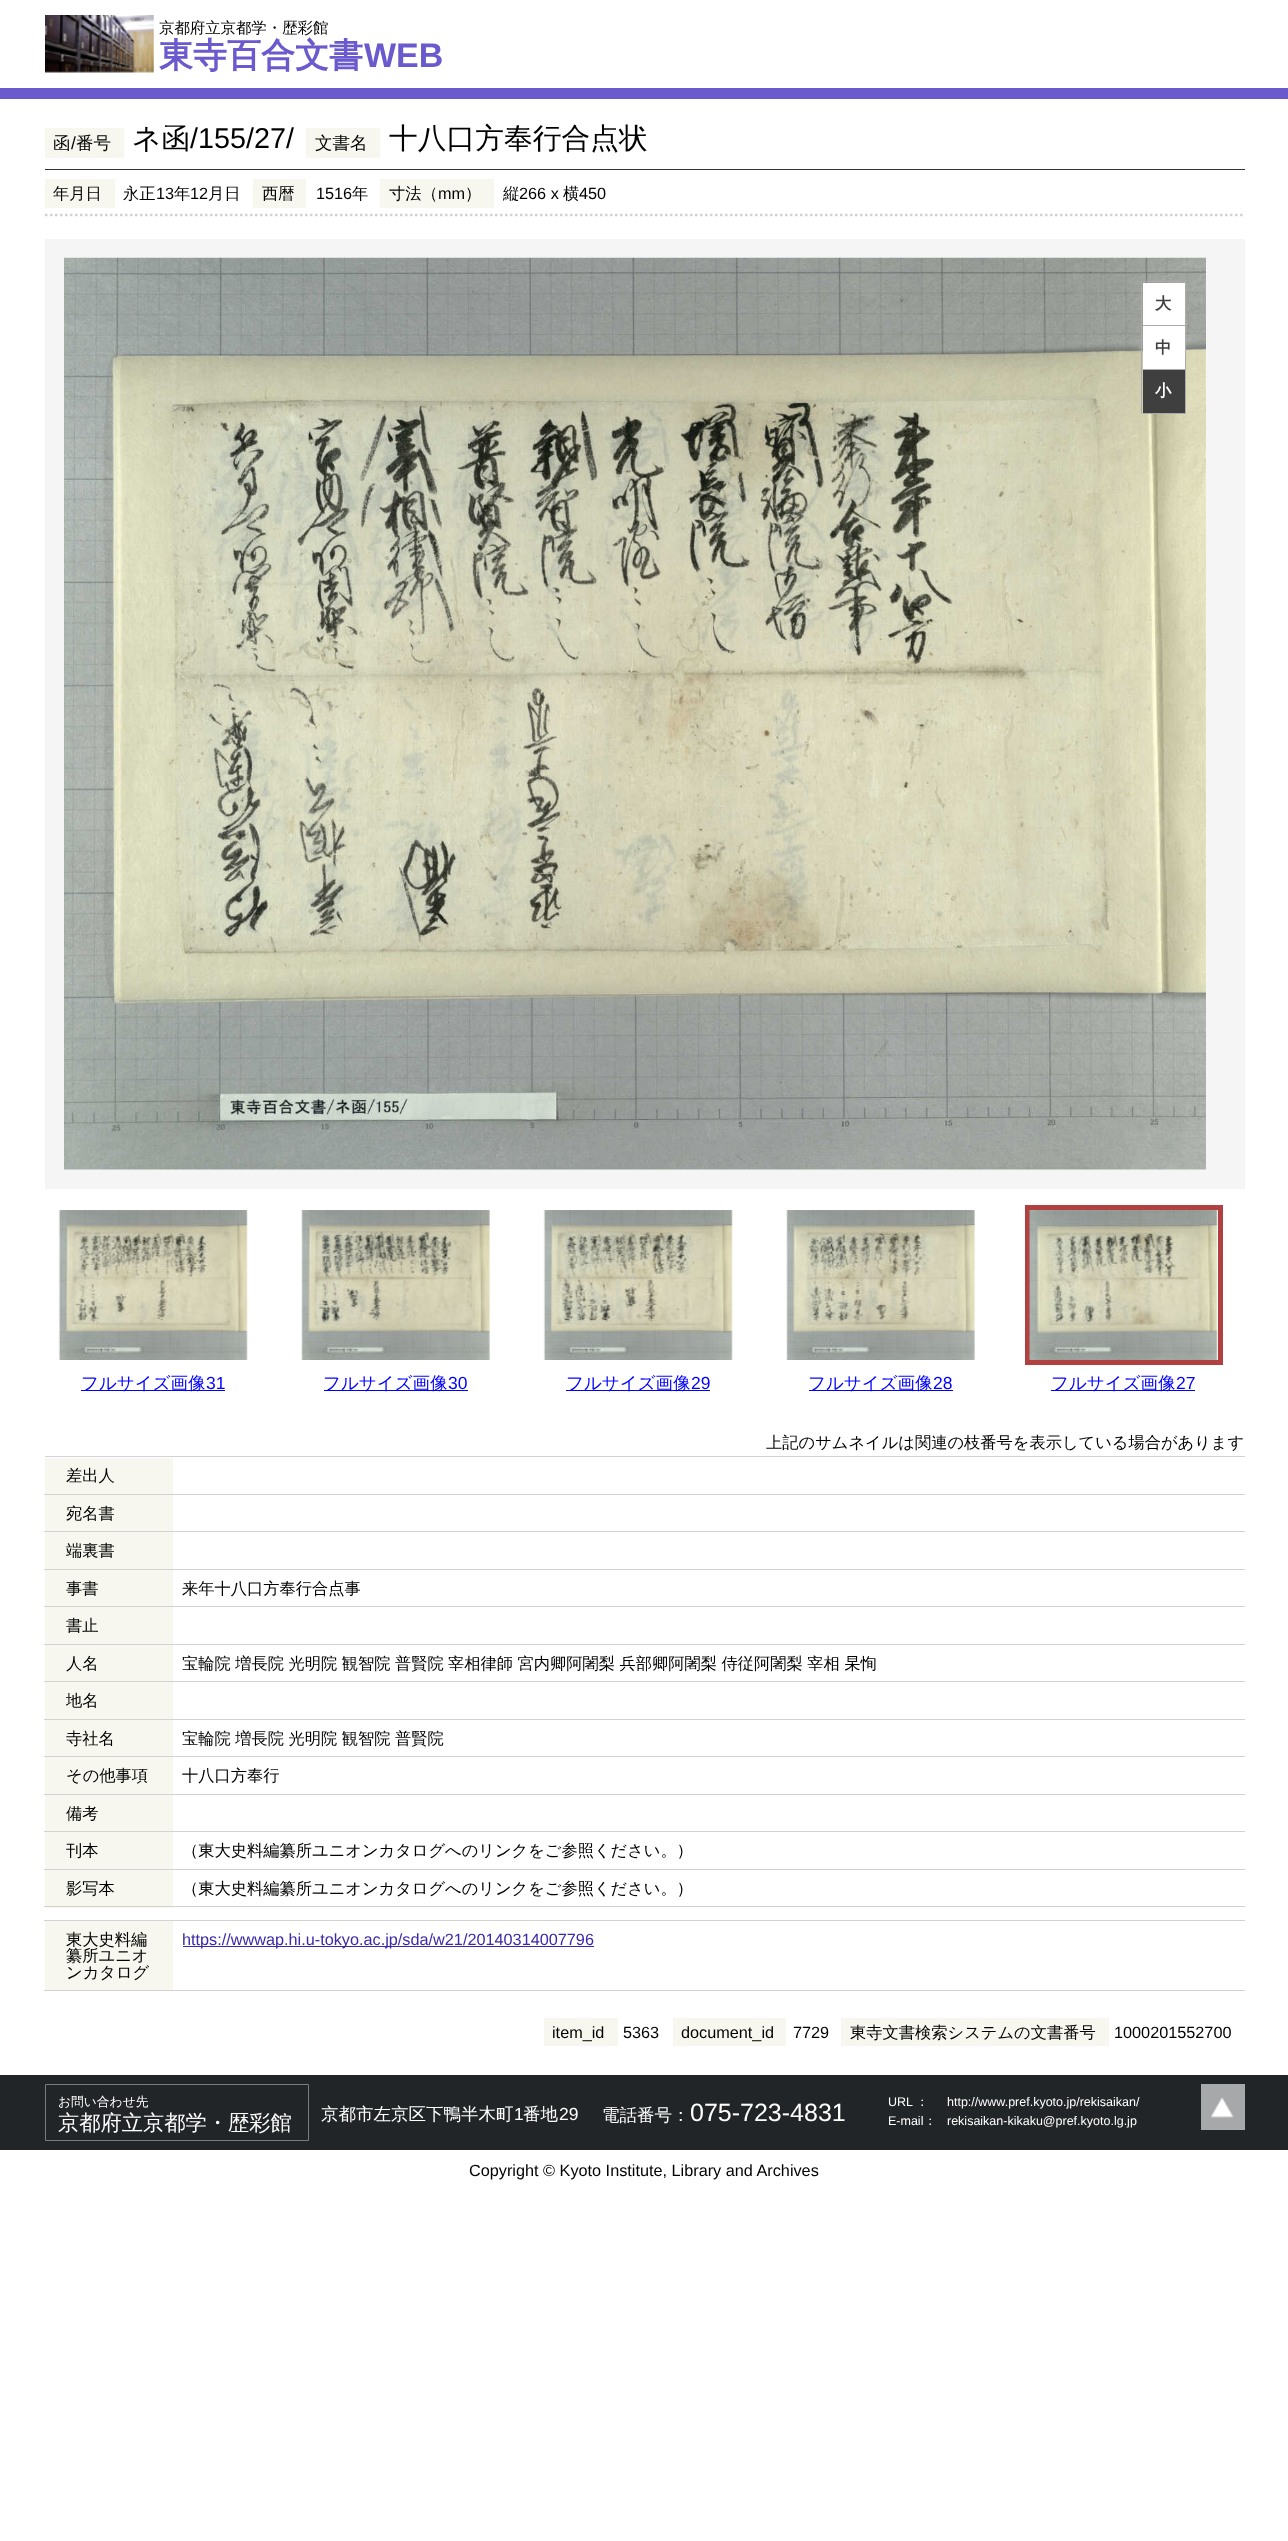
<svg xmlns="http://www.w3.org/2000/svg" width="1288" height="2541">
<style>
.a{font:500 15.4px WenQuanYi Zen Hei;fill:#000}
.b{font:bold 34px WenQuanYi Zen Hei;fill:#6a5acd}
.c{font:bold 34px Liberation Sans;fill:#6a5acd}
.d{font:500 17.5px WenQuanYi Zen Hei;fill:#000}
.e{font:17.5px Liberation Sans;fill:#000}
.f{font:500 28.75px WenQuanYi Zen Hei;fill:#000}
.g{font:28.75px Liberation Sans;fill:#000}
.h{font:500 16.25px WenQuanYi Zen Hei;fill:#000}
.i{font:16.25px Liberation Sans;fill:#000}
.j{font:bold 16.25px WenQuanYi Zen Hei;fill:#3f3f3f}
.k{font:bold 16.25px WenQuanYi Zen Hei;fill:#fff}
.l{font:500 17.5px WenQuanYi Zen Hei;fill:#00f}
.m{font:17.5px Liberation Sans;fill:#00f}
.n{font:16.25px Liberation Sans;fill:#3b29a9}
.o{font:500 12.75px WenQuanYi Zen Hei;fill:#fff}
.p{font:500 21.25px WenQuanYi Zen Hei;fill:#fff}
.q{font:500 17.5px WenQuanYi Zen Hei;fill:#fff}
.r{font:17.5px Liberation Sans;fill:#fff}
.s{font:25px Liberation Sans;fill:#fff}
.t{font:12.5px Liberation Sans;fill:#fff}
.u{font:500 12.5px WenQuanYi Zen Hei;fill:#fff}
</style>
<rect width="100%" height="100%" fill="#fff"/>
<path fill="#6a5acd" d="M0 88h1288v11H0z"/>
<image href="1.png" x="45" y="15" width="109" height="58"/>
<path fill="none" stroke="#d2d2d2" stroke-width="2.5" stroke-dasharray="2.5 2.5" d="M45 215h1200"/>
<path fill="#343434" d="M45 169h1200v1H45z"/>
<path fill="#f7f7ef" d="M45 128h79v30H45z"/>
<path fill="#f7f7ef" d="M306 128h74v30H306z"/>
<path fill="#f7f7ef" d="M45 179h70v29H45z"/>
<path fill="#f7f7ef" d="M253 179h53v29H253z"/>
<path fill="#f7f7ef" d="M380 179h114v29H380z"/>
<path fill="#f5f5f5" d="M45 239h1200v950H45z"/>
<image href="2.png" x="64" y="257" width="1142" height="913"/>
<path fill="#ababab" d="M1141 281h45v1H1141z"/>
<path fill="#ababab" d="M1185 281h1v133H1185z"/>
<path fill="#ababab" d="M1141 281h1v133H1141z"/>
<path fill="#ababab" d="M1143 325h42v1H1143z"/>
<path fill="#fff" d="M1143 283h42v42H1143z"/>
<path fill="#ababab" d="M1143 369h42v1H1143z"/>
<path fill="#fff" d="M1143 326h42v43H1143z"/>
<path fill="#ababab" d="M1143 413h42v1H1143z"/>
<path fill="#3f3f3f" d="M1143 370h42v43H1143z"/>
<image href="3.png" x="58" y="1210" width="190" height="150"/>
<path fill="#00f" d="M81 1390h144v1H81z"/>
<image href="4.png" x="301" y="1210" width="189" height="150"/>
<path fill="#00f" d="M324 1390h144v1H324z"/>
<image href="5.png" x="543" y="1210" width="190" height="150"/>
<path fill="#00f" d="M566 1390h144v1H566z"/>
<image href="6.png" x="786" y="1210" width="189" height="150"/>
<path fill="#00f" d="M809 1390h144v1H809z"/>
<path fill="none" stroke="#b14141" stroke-width="5" d="M1027.5 1207.5h193v155H1027.5z"/>
<image href="7.png" x="1028" y="1210" width="190" height="150"/>
<path fill="#00f" d="M1051 1390h144v1H1051z"/>
<path fill="#d2d2d2" d="M45 1456h1200v1H45z"/>
<path fill="#f7f7ef" d="M45 1458h128v36H45z"/>
<path fill="#d2d2d2" d="M44 1494h1201v1H44z"/>
<path fill="#f7f7ef" d="M45 1495h128v74H45z"/>
<path fill="#d2d2d2" d="M44 1531h1201v1H44z"/>
<path fill="#d2d2d2" d="M44 1569h1201v1H44z"/>
<path fill="#f7f7ef" d="M45 1570h128v74H45z"/>
<path fill="#d2d2d2" d="M44 1606h1201v1H44z"/>
<path fill="#d2d2d2" d="M44 1644h1201v1H44z"/>
<path fill="#f7f7ef" d="M45 1645h128v74H45z"/>
<path fill="#d2d2d2" d="M44 1681h1201v1H44z"/>
<path fill="#d2d2d2" d="M44 1719h1201v1H44z"/>
<path fill="#f7f7ef" d="M45 1720h128v74H45z"/>
<path fill="#d2d2d2" d="M44 1756h1201v1H44z"/>
<path fill="#d2d2d2" d="M44 1794h1201v1H44z"/>
<path fill="#f7f7ef" d="M45 1795h128v74H45z"/>
<path fill="#d2d2d2" d="M44 1831h1201v1H44z"/>
<path fill="#d2d2d2" d="M44 1869h1201v1H44z"/>
<path fill="#f7f7ef" d="M45 1870h128v38H45z"/>
<path fill="#d2d2d2" d="M44 1906h1201v1H44z"/>
<path fill="#d2d2d2" d="M44 1920h1201v1H44z"/>
<path fill="#f7f7ef" d="M45 1921h128v69H45z"/>
<path fill="#d2d2d2" d="M44 1990h1201v1H44z"/>
<path fill="#3b29a9" d="M183 1946h411v1H183z"/>
<path fill="#f7f7ef" d="M544 2018h74v28H544z"/>
<path fill="#f7f7ef" d="M673 2018h113v28H673z"/>
<path fill="#f7f7ef" d="M841 2018h268v28H841z"/>
<path fill="#222527" d="M0 2075h1288v75H0z"/>
<path fill="none" stroke="#7a7c7d" d="M45.5 2084.5h263v56H45.5z"/>
<path fill="#a7a8a9" d="M1201 2084h44v46H1201z"/>
<image href="8.png" x="1211" y="2097" width="23" height="21"/>
<text class="a" x="159" y="33">京都府立京都学・歴彩館</text>
<text class="b" x="159" y="67">東寺百合文書</text>
<text class="c" x="364" y="67">WEB</text>
<text class="d" x="53" y="149">函</text>
<text class="e" x="71" y="149">/</text>
<text class="d" x="76" y="149">番号</text>
<text class="f" x="132" y="148">ネ函</text>
<text class="g" x="190" y="148">/155/27/</text>
<text class="d" x="315" y="149">文書名</text>
<text class="f" x="389" y="148">十八口方奉行合点状</text>
<text class="h" x="53" y="199">年月日</text>
<text class="h" x="123" y="199">永正</text>
<text class="i" x="156" y="199">13</text>
<text class="h" x="174" y="199">年</text>
<text class="i" x="190" y="199">12</text>
<text class="h" x="208" y="199">月日</text>
<text class="h" x="262" y="199">西暦</text>
<text class="i" x="316" y="199">1516</text>
<text class="h" x="352" y="199">年</text>
<text class="h" x="389" y="199">寸法（</text>
<text class="i" x="438" y="199">mm</text>
<text class="h" x="465" y="199">）</text>
<text class="h" x="503" y="199">縦</text>
<text class="i" x="519" y="199">266 x</text>
<text class="h" x="563" y="199">横</text>
<text class="i" x="579" y="199">450</text>
<text class="j" x="1155" y="309">大</text>
<text class="j" x="1155" y="353">中</text>
<text class="k" x="1155" y="396">小</text>
<text class="l" x="81" y="1389">フルサイズ画像</text>
<text class="m" x="206" y="1389">31</text>
<text class="l" x="323" y="1389">フルサイズ画像</text>
<text class="m" x="448" y="1389">30</text>
<text class="l" x="566" y="1389">フルサイズ画像</text>
<text class="m" x="691" y="1389">29</text>
<text class="l" x="808" y="1389">フルサイズ画像</text>
<text class="m" x="933" y="1389">28</text>
<text class="l" x="1051" y="1389">フルサイズ画像</text>
<text class="m" x="1176" y="1389">27</text>
<text class="h" x="766" y="1448">上記のサムネイルは関連の枝番号を表示している場合があります</text>
<text class="h" x="66" y="1481">差出人</text>
<text class="h" x="66" y="1519">宛名書</text>
<text class="h" x="66" y="1556">端裏書</text>
<text class="h" x="66" y="1594">事書</text>
<text class="h" x="182" y="1594">来年十八口方奉行合点事</text>
<text class="h" x="66" y="1631">書止</text>
<text class="h" x="66" y="1669">人名</text>
<text class="h" x="182" y="1669" word-spacing="-0.4">宝輪院 増長院 光明院 観智院 普賢院 宰相律師 宮内卿阿闍梨 兵部卿阿闍梨 侍従阿闍梨 宰相 杲恂</text>
<text class="h" x="66" y="1706">地名</text>
<text class="h" x="66" y="1744">寺社名</text>
<text class="h" x="182" y="1744" word-spacing="-0.4">宝輪院 増長院 光明院 観智院 普賢院</text>
<text class="h" x="66" y="1781">その他事項</text>
<text class="h" x="182" y="1781">十八口方奉行</text>
<text class="h" x="66" y="1819">備考</text>
<text class="h" x="66" y="1856">刊本</text>
<text class="h" x="182" y="1856">（東大史料編纂所ユニオンカタログへのリンクをご参照ください。）</text>
<text class="h" x="66" y="1894">影写本</text>
<text class="h" x="182" y="1894">（東大史料編纂所ユニオンカタログへのリンクをご参照ください。）</text>
<text class="h" x="66" y="1945">東大史料編</text>
<text class="h" x="66" y="1961">纂所ユニオ</text>
<text class="h" x="66" y="1978">ンカタログ</text>
<text class="n" x="182" y="1945">https://wwwap.hi.u-tokyo.ac.jp/sda/w21/20140314007796</text>
<text class="i" x="552" y="2038">item_id</text>
<text class="i" x="623" y="2038">5363</text>
<text class="i" x="681" y="2038">document_id</text>
<text class="i" x="793" y="2038">7729</text>
<text class="h" x="850" y="2038">東寺文書検索システムの文書番号</text>
<text class="i" x="1114" y="2038">1000201552700</text>
<text class="o" x="58" y="2106">お問い合わせ先</text>
<text class="p" x="58" y="2130">京都府立京都学・歴彩館</text>
<text class="q" x="321" y="2120">京都市左京区下鴨半木町</text>
<text class="r" x="514" y="2120">1</text>
<text class="q" x="523" y="2120">番地</text>
<text class="r" x="559" y="2120">29</text>
<text class="q" x="602" y="2121">電話番号：</text>
<text class="s" x="690" y="2121">075-723-4831</text>
<text class="t" x="888" y="2106">URL</text>
<text class="u" x="916" y="2106">：</text>
<text class="t" x="947" y="2106">http://www.pref.kyoto.jp/rekisaikan/</text>
<text class="t" x="888" y="2125">E-mail</text>
<text class="u" x="924" y="2125">：</text>
<text class="t" x="947" y="2125">rekisaikan-kikaku@pref.kyoto.lg.jp</text>
<text class="i" x="469" y="2176">Copyright © Kyoto Institute, Library and Archives</text>
</svg>
